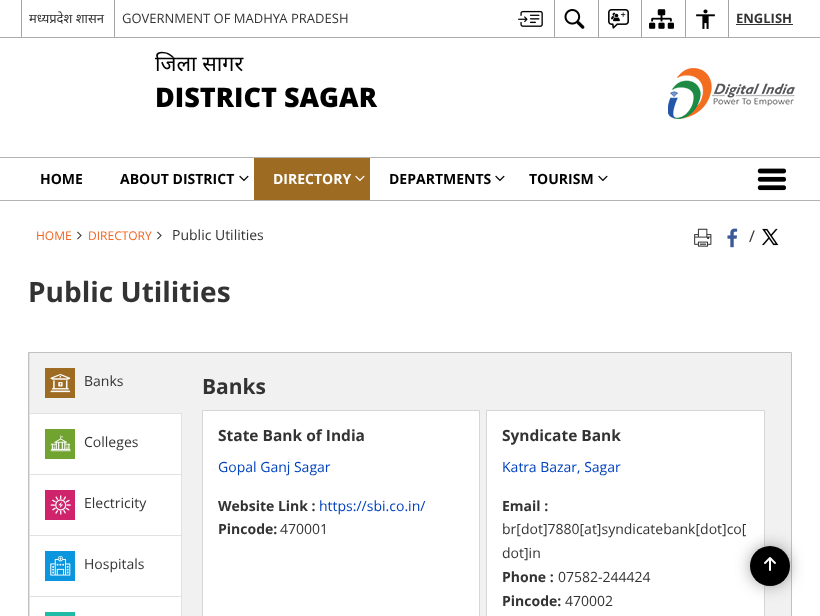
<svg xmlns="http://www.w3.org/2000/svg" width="820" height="616">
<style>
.a{font:13px Noto Sans;fill:#333}
.b{font:13px Open Sans;fill:#333}
.c{font:bold 13px Open Sans;fill:#333}
.d{font:21.5px Noto Sans;fill:#000}
.e{font:800 27px Open Sans;fill:#000}
.f{font:bold 14px Open Sans;fill:#000}
.g{font:bold 14px Open Sans;fill:#fff}
.h{font:12px Open Sans;fill:#f26522}
.i{font:14px Open Sans;fill:#333}
.j{font:16px Open Sans;fill:#333}
.k{font:bold 28px Open Sans;fill:#333}
.l{font:bold 21px Open Sans;fill:#333}
.m{font:bold 15.5px Open Sans;fill:#333}
.n{font:14px Open Sans;fill:#0042bf}
.o{font:bold 14px Open Sans;fill:#333}
</style>
<rect width="100%" height="100%" fill="#fff"/>
<path fill="#ababab" d="M0 37h820v1H0z"/>
<path fill="#a3a3a3" d="M21 0h1v37H21z"/>
<path fill="#a3a3a3" d="M114 0h1v37H114z"/>
<image href="1.png" x="518" y="10" width="25" height="17"/>
<path fill="#a3a3a3" d="M554 0h1v37H554z"/>
<image href="2.png" x="564" y="9" width="21" height="20"/>
<path fill="#a3a3a3" d="M598 0h1v37H598z"/>
<image href="3.png" x="608" y="9" width="21" height="20"/>
<path fill="#a3a3a3" d="M641 0h1v37H641z"/>
<image href="4.png" x="649" y="9" width="25" height="20"/>
<path fill="#a3a3a3" d="M685 0h1v37H685z"/>
<image href="5.png" x="696" y="9" width="19" height="20"/>
<path fill="#a3a3a3" d="M728 0h1v37H728z"/>
<path fill="#333" d="M736 24h57v1H736z"/>
<image href="6.png" x="668" y="68" width="127" height="51"/>
<path fill="#b3b3b3" d="M0 157h820v1H0z"/>
<path fill="#b3b3b3" d="M0 200h820v1H0z"/>
<image href="7.png" x="239" y="175" width="10" height="7"/>
<path fill="#9e6b22" d="M254 158h116v42H254z"/>
<image href="8.png" x="355" y="175" width="10" height="7"/>
<image href="7.png" x="495" y="175" width="10" height="7"/>
<image href="7.png" x="598" y="175" width="10" height="7"/>
<image href="9.png" x="757" y="168" width="30" height="23"/>
<image href="10.png" x="77" y="231" width="5" height="9"/>
<image href="10.png" x="157" y="231" width="5" height="9"/>
<image href="11.png" x="694" y="228" width="18" height="19"/>
<image href="12.png" x="727" y="228" width="11" height="20"/>
<image href="13.png" x="762" y="228" width="17" height="18"/>
<path fill="#f1f1f1" d="M30 353h761v263H30z"/>
<path fill="none" stroke="#c1c1c1" d="M28.5 352.5h763v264H28.5z"/>
<path fill="#e1e1e1" d="M29 413h153v1H29z"/>
<path fill="#e1e1e1" d="M29 353h1v61H29z"/>
<path fill="#9e6b22" d="M45 368h30v30H45z"/>
<image href="14.png" x="50" y="373" width="21" height="20"/>
<path fill="#fff" d="M30 414h151v60H30z"/>
<path fill="#e1e1e1" d="M181 414h1v202H181z"/>
<path fill="#e1e1e1" d="M29 474h153v1H29z"/>
<path fill="#e1e1e1" d="M29 414h1v61H29z"/>
<path fill="#71a330" d="M45 429h30v30H45z"/>
<image href="15.png" x="50" y="435" width="21" height="17"/>
<path fill="#fff" d="M30 475h151v60H30z"/>
<path fill="#e1e1e1" d="M29 535h153v1H29z"/>
<path fill="#e1e1e1" d="M29 475h1v61H29z"/>
<path fill="#cf246c" d="M45 490h30v30H45z"/>
<image href="16.png" x="50" y="495" width="21" height="20"/>
<path fill="#fff" d="M30 536h151v60H30z"/>
<path fill="#e1e1e1" d="M29 596h153v1H29z"/>
<path fill="#e1e1e1" d="M29 536h1v80H29z"/>
<path fill="#0b95de" d="M45 551h30v30H45z"/>
<image href="17.png" x="50" y="556" width="21" height="20"/>
<path fill="#fff" d="M30 597h151v19H30z"/>
<path fill="#1fbba6" d="M45 612h30v4H45z"/>
<path fill="#fff" stroke="#d8d5d5" d="M202.5 410.5h277v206H202.5z"/>
<path fill="#fff" stroke="#d8d5d5" d="M486.5 410.5h278v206H486.5z"/>
<rect fill="#3c3c3c" filter="blur(9.5px)" x="755" y="551" width="30" height="30" rx="15"/>
<circle fill="#000" cx="770" cy="566" r="20"/>
<image href="18.png" x="764" y="557" width="12" height="14"/>
<text class="a" x="29" y="23">मध्यप्रदेश शासन</text>
<text class="b" x="122" y="23">GOVERNMENT OF MADHYA PRADESH</text>
<text class="c" x="736" y="23">ENGLISH</text>
<text class="d" x="155" y="71">जिला सागर</text>
<text class="e" x="155" y="107">DISTRICT SAGAR</text>
<text class="f" x="40" y="184">HOME</text>
<text class="f" x="120" y="184">ABOUT DISTRICT</text>
<text class="g" x="273" y="184">DIRECTORY</text>
<text class="f" x="389" y="184">DEPARTMENTS</text>
<text class="f" x="529" y="184">TOURISM</text>
<text class="h" x="36" y="240">HOME</text>
<text class="h" x="88" y="240">DIRECTORY</text>
<text class="i" x="172" y="240">Public Utilities</text>
<text class="j" x="749" y="242">/</text>
<text class="k" x="28" y="302">Public Utilities</text>
<text class="i" x="84" y="386">Banks</text>
<text class="i" x="84" y="447">Colleges</text>
<text class="i" x="84" y="508">Electricity</text>
<text class="i" x="84" y="569">Hospitals</text>
<text class="l" x="202" y="394">Banks</text>
<text class="m" x="218" y="441">State Bank of India</text>
<text class="n" x="218" y="472">Gopal Ganj Sagar</text>
<text class="o" x="218" y="511">Website Link :</text>
<text class="n" x="319" y="511">https://sbi.co.in/</text>
<text class="o" x="218" y="534">Pincode:</text>
<text class="i" x="280" y="534">470001</text>
<text class="m" x="502" y="441">Syndicate Bank</text>
<text class="n" x="502" y="472">Katra Bazar, Sagar</text>
<text class="o" x="502" y="511">Email :</text>
<text class="i" x="502" y="534">br[dot]7880[at]syndicatebank[dot]co[</text>
<text class="i" x="502" y="558">dot]in</text>
<text class="o" x="502" y="582">Phone :</text>
<text class="i" x="558" y="582">07582-244424</text>
<text class="o" x="502" y="606">Pincode:</text>
<text class="i" x="565" y="606">470002</text>
</svg>
